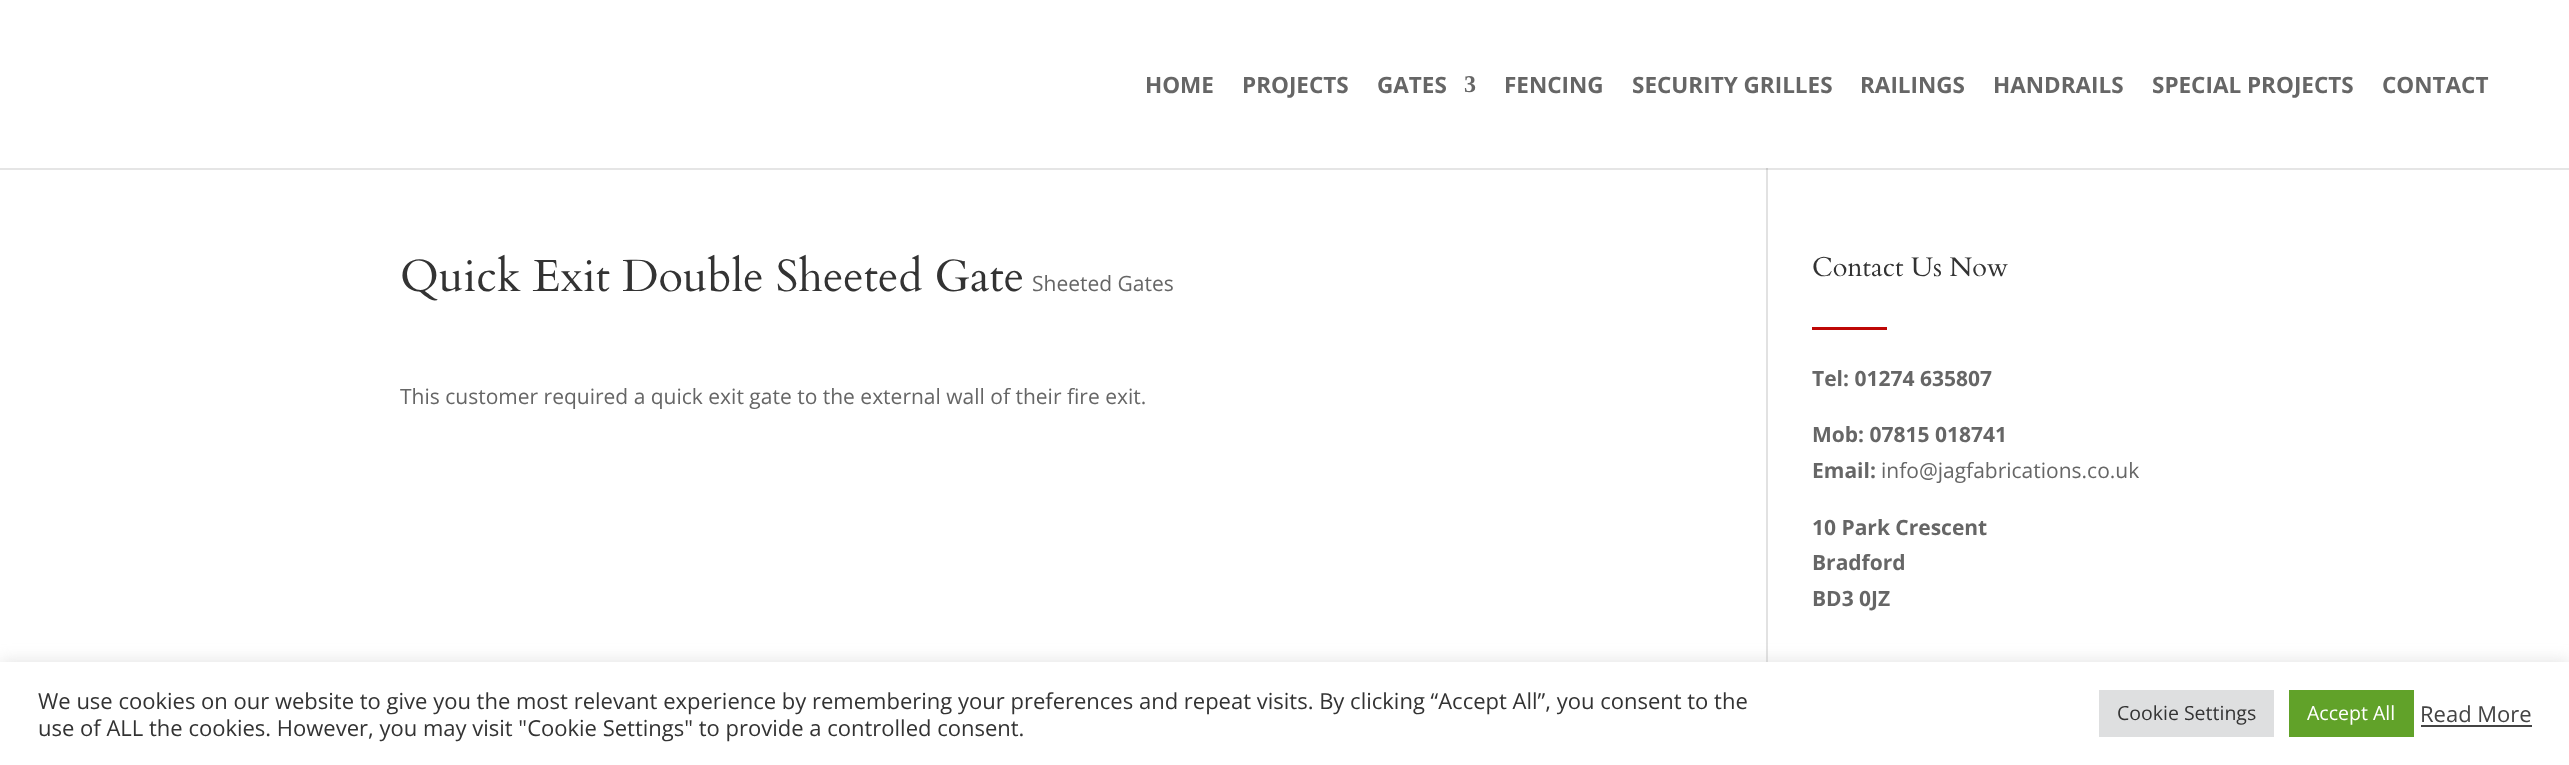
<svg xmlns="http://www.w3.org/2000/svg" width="2569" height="765">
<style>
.a{font:bold 22.5px Open Sans;fill:#666}
.b{font:bold 24px Liberation Serif;fill:#666}
.c{font:45px Cardo;fill:#333}
.d{font:21px Open Sans;fill:#666}
.e{font:27px Cardo;fill:#333}
.f{font:bold 21px Open Sans;fill:#666}
.g{font:22px Open Sans;fill:#333}
.h{font:19.5px Open Sans;fill:#333}
.i{font:19.5px Open Sans;fill:#fff}
.j{font:22px Open Sans;fill:#444}
</style>
<rect width="100%" height="100%" fill="#fff"/>
<path fill="#e2e2e2" d="M1766 168h2v494H1766z"/>
<path fill="#0000001a" d="M0 168v2h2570v-168v166z"/>
<path fill="#be0706" d="M1812 327h75v3H1812z"/>
<path fill="#acabab4d" filter="blur(7.5px)" d="M0 660h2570v104H0z"/>
<path fill="#fff" d="M0 662h2569v103H0z"/>
<path fill="#dedfe0" d="M2099 690h175v47H2099z"/>
<path fill="#61a229" d="M2289 690h125v47H2289z"/>
<path fill="#444" d="M2421 725h111v2H2421z"/>
<text class="a" x="1145" y="93">HOME</text>
<text class="a" x="1242" y="93">PROJECTS</text>
<text class="a" x="1377" y="93">GATES</text>
<text class="b" x="1464" y="92">3</text>
<text class="a" x="1504" y="93">FENCING</text>
<text class="a" x="1632" y="93">SECURITY GRILLES</text>
<text class="a" x="1860" y="93">RAILINGS</text>
<text class="a" x="1993" y="93">HANDRAILS</text>
<text class="a" x="2152" y="93">SPECIAL PROJECTS</text>
<text class="a" x="2382" y="93">CONTACT</text>
<text class="c" x="400" y="291">Quick Exit Double Sheeted Gate</text>
<text class="d" x="1032" y="291">Sheeted Gates</text>
<text class="d" x="400" y="404">This customer required a quick exit gate to the external wall of their fire exit.</text>
<text class="e" x="1812" y="276">Contact Us Now</text>
<text class="f" x="1812" y="386">Tel: 01274 635807</text>
<text class="f" x="1812" y="442">Mob: 07815 018741</text>
<text class="f" x="1812" y="478">Email:</text>
<text class="d" x="1881" y="478">info@jagfabrications.co.uk</text>
<text class="f" x="1812" y="535">10 Park Crescent</text>
<text class="f" x="1812" y="570">Bradford</text>
<text class="f" x="1812" y="606">BD3 0JZ</text>
<text class="g" x="38" y="709">We use cookies on our website to give you the most relevant experience by remembering your preferences and repeat visits. By clicking “Accept All”, you consent to the</text>
<text class="g" x="38" y="736">use of ALL the cookies. However, you may visit "Cookie Settings" to provide a controlled consent.</text>
<text class="h" x="2117" y="720">Cookie Settings</text>
<text class="i" x="2307" y="720">Accept All</text>
<text class="j" x="2420" y="722">Read More</text>
</svg>
